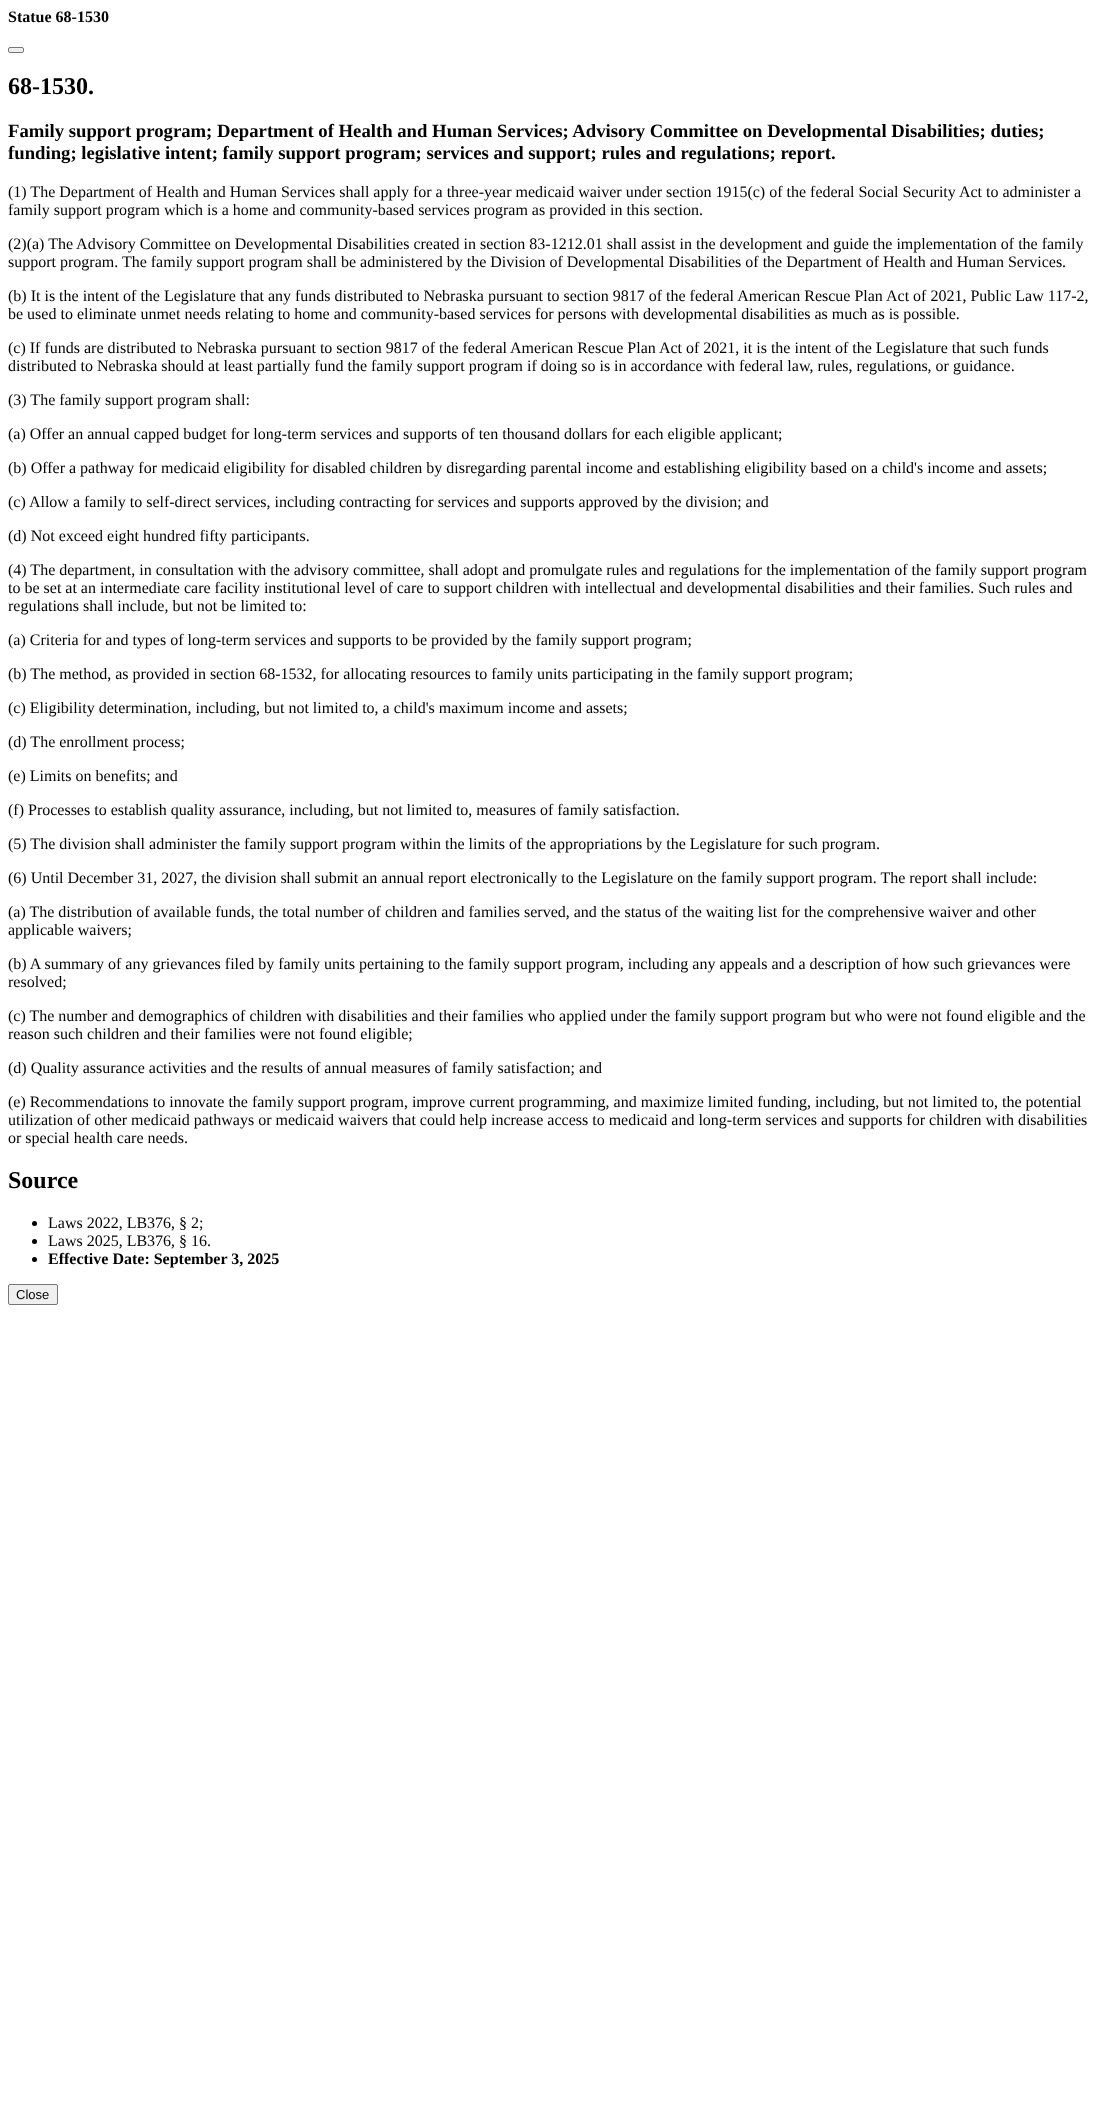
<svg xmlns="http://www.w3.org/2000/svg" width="1099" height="2119">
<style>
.a{font:bold 16px Liberation Serif;fill:#000}
.b{font:bold 24px Liberation Serif;fill:#000}
.c{font:bold 18.72px Liberation Serif;fill:#000}
.d{font:16px Liberation Serif;fill:#000}
.e{font:13px Liberation Sans;fill:#000}
</style>
<rect width="100%" height="100%" fill="#fff"/>
<rect fill="#efefef" stroke="#767676" x="8.5" y="47.5" width="15" height="5" rx="1.5"/>
<circle fill="#000" cx="34.5" cy="1223.5" r="2.5"/>
<circle fill="#000" cx="34.5" cy="1241.5" r="2.5"/>
<circle fill="#000" cx="34.5" cy="1259.5" r="2.5"/>
<rect fill="#efefef" stroke="#767676" x="8.5" y="1284.5" width="49" height="20" rx="1.5"/>
<text class="a" x="8" y="22">Statue 68-1530</text>
<text class="b" x="8" y="94">68-1530.</text>
<text class="c" x="8" y="137">Family support program; Department of Health and Human Services; Advisory Committee on Developmental Disabilities; duties;</text>
<text class="c" x="8" y="159">funding; legislative intent; family support program; services and support; rules and regulations; report.</text>
<text class="d" x="8" y="197">(1) The Department of Health and Human Services shall apply for a three-year medicaid waiver under section 1915(c) of the federal Social Security Act to administer a</text>
<text class="d" x="8" y="215">family support program which is a home and community-based services program as provided in this section.</text>
<text class="d" x="8" y="249">(2)(a) The Advisory Committee on Developmental Disabilities created in section 83-1212.01 shall assist in the development and guide the implementation of the family</text>
<text class="d" x="8" y="267">support program. The family support program shall be administered by the Division of Developmental Disabilities of the Department of Health and Human Services.</text>
<text class="d" x="8" y="301">(b) It is the intent of the Legislature that any funds distributed to Nebraska pursuant to section 9817 of the federal American Rescue Plan Act of 2021, Public Law 117-2,</text>
<text class="d" x="8" y="319">be used to eliminate unmet needs relating to home and community-based services for persons with developmental disabilities as much as is possible.</text>
<text class="d" x="8" y="353">(c) If funds are distributed to Nebraska pursuant to section 9817 of the federal American Rescue Plan Act of 2021, it is the intent of the Legislature that such funds</text>
<text class="d" x="8" y="371">distributed to Nebraska should at least partially fund the family support program if doing so is in accordance with federal law, rules, regulations, or guidance.</text>
<text class="d" x="8" y="405">(3) The family support program shall:</text>
<text class="d" x="8" y="439">(a) Offer an annual capped budget for long-term services and supports of ten thousand dollars for each eligible applicant;</text>
<text class="d" x="8" y="473">(b) Offer a pathway for medicaid eligibility for disabled children by disregarding parental income and establishing eligibility based on a child's income and assets;</text>
<text class="d" x="8" y="507">(c) Allow a family to self-direct services, including contracting for services and supports approved by the division; and</text>
<text class="d" x="8" y="541">(d) Not exceed eight hundred fifty participants.</text>
<text class="d" x="8" y="575">(4) The department, in consultation with the advisory committee, shall adopt and promulgate rules and regulations for the implementation of the family support program</text>
<text class="d" x="8" y="593">to be set at an intermediate care facility institutional level of care to support children with intellectual and developmental disabilities and their families. Such rules and</text>
<text class="d" x="8" y="611">regulations shall include, but not be limited to:</text>
<text class="d" x="8" y="645">(a) Criteria for and types of long-term services and supports to be provided by the family support program;</text>
<text class="d" x="8" y="679">(b) The method, as provided in section 68-1532, for allocating resources to family units participating in the family support program;</text>
<text class="d" x="8" y="713">(c) Eligibility determination, including, but not limited to, a child's maximum income and assets;</text>
<text class="d" x="8" y="747">(d) The enrollment process;</text>
<text class="d" x="8" y="781">(e) Limits on benefits; and</text>
<text class="d" x="8" y="815">(f) Processes to establish quality assurance, including, but not limited to, measures of family satisfaction.</text>
<text class="d" x="8" y="849">(5) The division shall administer the family support program within the limits of the appropriations by the Legislature for such program.</text>
<text class="d" x="8" y="883">(6) Until December 31, 2027, the division shall submit an annual report electronically to the Legislature on the family support program. The report shall include:</text>
<text class="d" x="8" y="917">(a) The distribution of available funds, the total number of children and families served, and the status of the waiting list for the comprehensive waiver and other</text>
<text class="d" x="8" y="935">applicable waivers;</text>
<text class="d" x="8" y="969">(b) A summary of any grievances filed by family units pertaining to the family support program, including any appeals and a description of how such grievances were</text>
<text class="d" x="8" y="987">resolved;</text>
<text class="d" x="8" y="1021">(c) The number and demographics of children with disabilities and their families who applied under the family support program but who were not found eligible and the</text>
<text class="d" x="8" y="1039">reason such children and their families were not found eligible;</text>
<text class="d" x="8" y="1073">(d) Quality assurance activities and the results of annual measures of family satisfaction; and</text>
<text class="d" x="8" y="1107">(e) Recommendations to innovate the family support program, improve current programming, and maximize limited funding, including, but not limited to, the potential</text>
<text class="d" x="8" y="1125">utilization of other medicaid pathways or medicaid waivers that could help increase access to medicaid and long-term services and supports for children with disabilities</text>
<text class="d" x="8" y="1143">or special health care needs.</text>
<text class="b" x="8" y="1188">Source</text>
<text class="d" x="48" y="1228">Laws 2022, LB376, § 2;</text>
<text class="d" x="48" y="1246">Laws 2025, LB376, § 16.</text>
<text class="a" x="48" y="1264">Effective Date: September 3, 2025</text>
<text class="e" x="16" y="1299">Close</text>
</svg>
